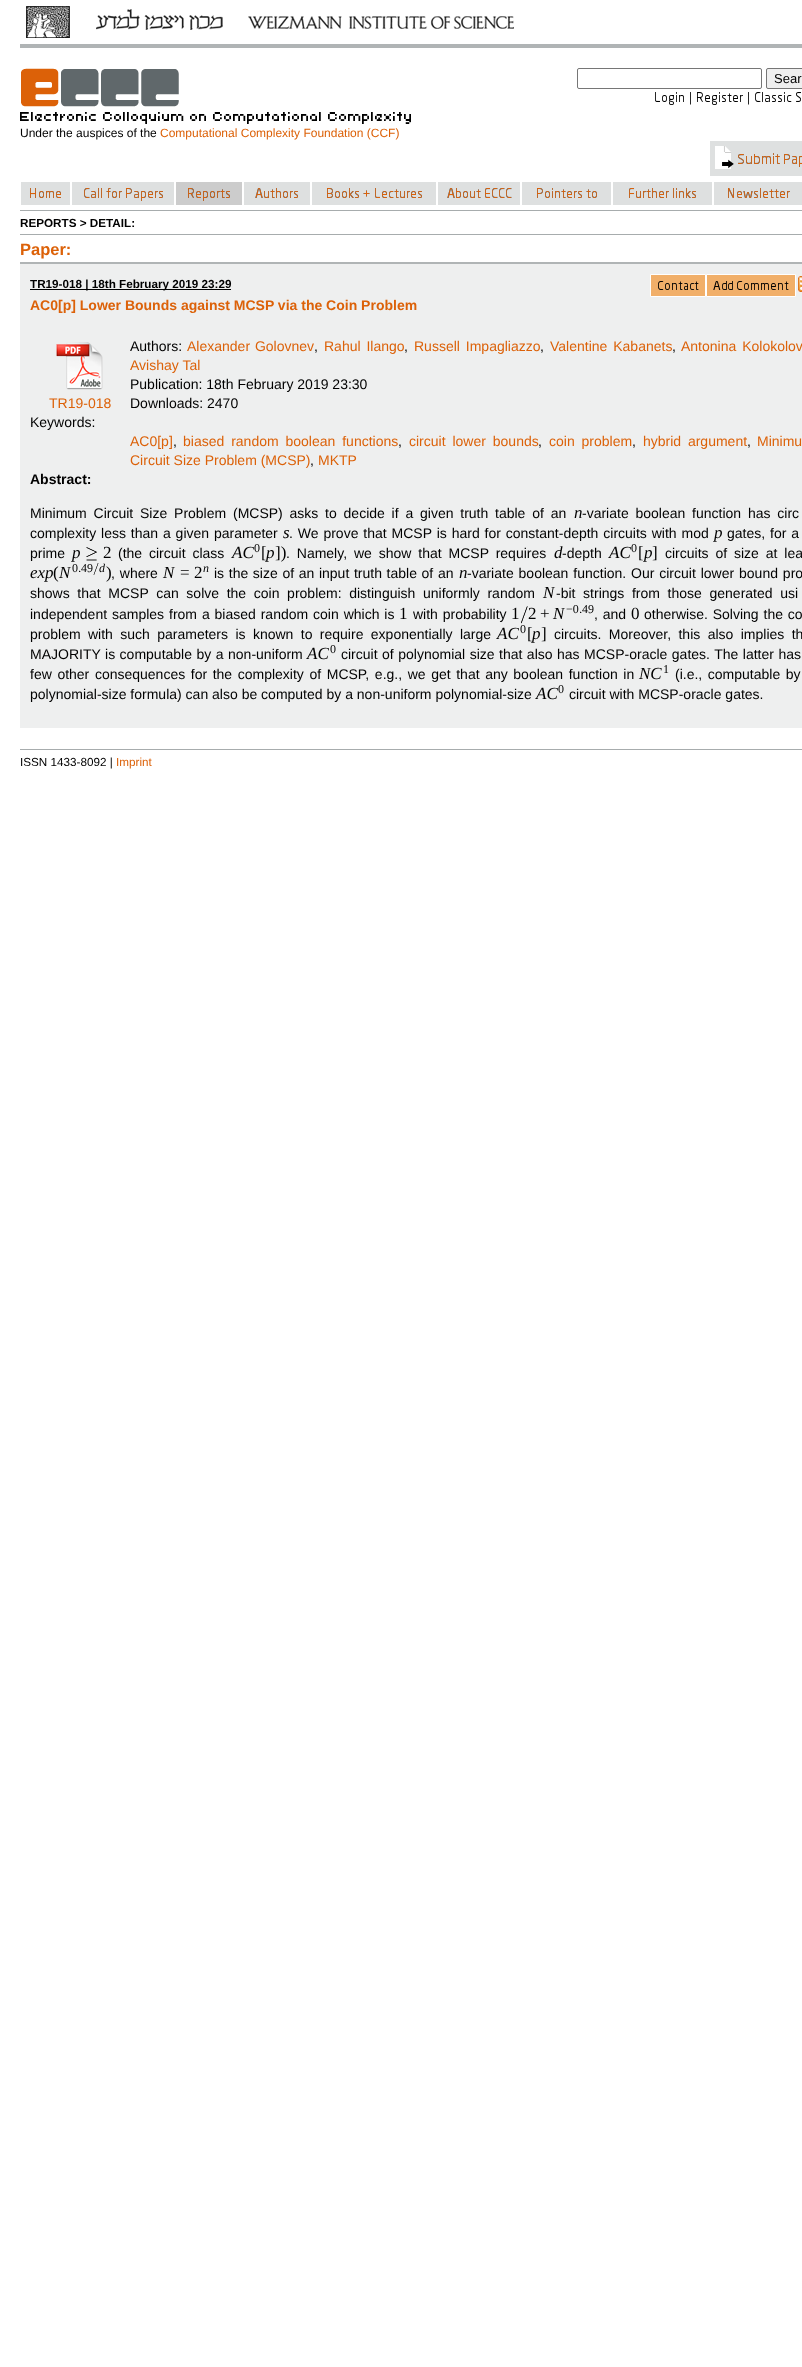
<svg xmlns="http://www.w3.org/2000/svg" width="802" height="2367">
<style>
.a{font:13px Liberation Sans;fill:#000}
.b{font:12px Liberation Sans;fill:#000}
.c{font:12px Liberation Sans;fill:#dc6108}
.d{font:bold 11.7px Liberation Sans;fill:#000}
.e{font:bold 16.5px Liberation Sans;fill:#dc6108}
.f{font:bold 14px Liberation Sans;fill:#dc6108}
.g{font:14px Liberation Sans;fill:#000}
.h{font:14px Liberation Sans;fill:#dc6108}
.i{font:bold 14px Liberation Sans;fill:#000}
.j{font:italic 17px Liberation Serif;fill:#000}
.k{font:17px Liberation Serif;fill:#000}
.l{font:12px Liberation Serif;fill:#000}
.m{font:italic 12px Liberation Serif;fill:#000}
.n{font:11.7px Liberation Sans;fill:#000}
.o{font:11.7px Liberation Sans;fill:#dc6108}
</style>
<rect width="100%" height="100%" fill="#fff"/>
<path fill="#b0b4b5" d="M20 44h782v4H20z"/>
<image href="1.png" x="26" y="6" width="488" height="32"/>
<rect fill="none" stroke="#767676" x="577.5" y="68.5" width="184" height="20" rx="1.5"/>
<rect fill="#efefef" stroke="#767676" x="766.5" y="68.5" width="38" height="20" rx="1.5"/>
<image href="2.png" x="655" y="92" width="29" height="13"/>
<image href="3.png" x="690" y="92" width="1" height="13"/>
<image href="4.png" x="697" y="92" width="46" height="13"/>
<image href="3.png" x="748" y="92" width="1" height="13"/>
<image href="5.png" x="755" y="92" width="46" height="10"/>
<image href="6.png" x="21" y="68" width="158" height="39"/>
<image href="7.png" x="20" y="112" width="391" height="12"/>
<path fill="#dee0e0" d="M710 141h92v35H710z"/>
<image href="8.png" x="715" y="146" width="19" height="23"/>
<image href="9.png" x="738" y="153" width="64" height="14"/>
<path fill="#dee0e0" d="M21 182h49v23H21z"/>
<image href="10.png" x="30" y="188" width="31" height="10"/>
<path fill="#dee0e0" d="M72 182h102v23H72z"/>
<image href="11.png" x="84" y="188" width="79" height="13"/>
<path fill="#ccc" d="M176 182h66v23H176z"/>
<image href="12.png" x="188" y="188" width="42" height="13"/>
<path fill="#dee0e0" d="M244 182h66v23H244z"/>
<image href="13.png" x="255" y="188" width="43" height="10"/>
<path fill="#dee0e0" d="M312 182h124v23H312z"/>
<image href="14.png" x="327" y="188" width="95" height="10"/>
<path fill="#dee0e0" d="M438 182h82v23H438z"/>
<image href="15.png" x="447" y="188" width="65" height="10"/>
<path fill="#dee0e0" d="M522 182h89v23H522z"/>
<image href="16.png" x="537" y="188" width="60" height="10"/>
<path fill="#dee0e0" d="M613 182h99v23H613z"/>
<image href="17.png" x="629" y="188" width="67" height="10"/>
<path fill="#dee0e0" d="M714 182h88v23H714z"/>
<image href="18.png" x="728" y="188" width="62" height="10"/>
<path fill="#a7acad" d="M20 210h782v1H20z"/>
<path fill="#a7acad" d="M20 234h782v1H20z"/>
<path fill="#eeefef" d="M20 264h782v464H20z"/>
<path fill="#b0b4b5" d="M20 262h782v2H20z"/>
<path fill="#000" d="M30 289h201v1H30z"/>
<path fill="#f1af69" stroke="#fff" d="M650.5 274.5h55v22H650.5z"/>
<image href="19.png" x="658" y="281" width="41" height="9"/>
<path fill="#f1af69" stroke="#fff" d="M706.5 274.5h89v22H706.5z"/>
<image href="20.png" x="713" y="281" width="76" height="9"/>
<image href="21.png" x="798" y="276" width="4" height="16"/>
<image href="22.png" x="56" y="342" width="47" height="48"/>
<image href="23.png" x="86" y="547" width="11" height="14"/>
<image href="24.png" x="79" y="570" width="2" height="2"/>
<image href="25.png" x="93" y="563" width="6" height="12"/>
<image href="26.png" x="521" y="606" width="7" height="18"/>
<image href="24.png" x="580" y="611" width="2" height="2"/>
<path fill="#a7acad" d="M20 749h782v1H20z"/>
<text class="a" x="774" y="83">Sear</text>
<text class="b" x="20" y="137">Under the auspices of the</text>
<text class="c" x="160" y="137">Computational Complexity Foundation (CCF)</text>
<text class="d" x="20" y="227">REPORTS &gt; DETAIL:</text>
<text class="e" x="20" y="255">Paper:</text>
<text class="d" x="30" y="288">TR19-018 | 18th February 2019 23:29</text>
<text class="f" x="30" y="310">AC0[p] Lower Bounds against MCSP via the Coin Problem</text>
<text class="g" x="130" y="351">Authors:</text>
<text class="h" x="187" y="351" word-spacing="1">Alexander Golovnev</text>
<text class="g" x="314" y="351">,</text>
<text class="h" x="324" y="351" word-spacing="2">Rahul Ilango</text>
<text class="g" x="404" y="351">,</text>
<text class="h" x="414" y="351" word-spacing="2">Russell Impagliazzo</text>
<text class="g" x="540" y="351">,</text>
<text class="h" x="550" y="351" word-spacing="2">Valentine Kabanets</text>
<text class="g" x="672" y="351">,</text>
<text class="h" x="681" y="351" word-spacing="2">Antonina Kolokolov</text>
<text class="h" x="130" y="370">Avishay Tal</text>
<text class="g" x="130" y="389">Publication: 18th February 2019 23:30</text>
<text class="h" x="49" y="408">TR19-018</text>
<text class="g" x="130" y="408">Downloads: 2470</text>
<text class="g" x="30" y="427">Keywords:</text>
<text class="h" x="130" y="446">AC0[p]</text>
<text class="g" x="173" y="446">,</text>
<text class="h" x="183" y="446" word-spacing="3">biased random boolean functions</text>
<text class="g" x="398" y="446">,</text>
<text class="h" x="409" y="446" word-spacing="3">circuit lower bounds</text>
<text class="g" x="538" y="446">,</text>
<text class="h" x="549" y="446" word-spacing="3">coin problem</text>
<text class="g" x="632" y="446">,</text>
<text class="h" x="643" y="446" word-spacing="2.9">hybrid argument</text>
<text class="g" x="747" y="446">,</text>
<text class="h" x="757" y="446">Minimu</text>
<text class="h" x="130" y="465">Circuit Size Problem (MCSP)</text>
<text class="g" x="310" y="465">,</text>
<text class="h" x="318" y="465">MKTP</text>
<text class="i" x="30" y="484">Abstract:</text>
<text class="g" x="30" y="518" word-spacing="2.9">Minimum Circuit Size Problem (MCSP) asks to decide if a given truth table of an</text>
<text class="j" x="574" y="518">n</text>
<text class="g" x="582" y="518" word-spacing="2.9">-variate boolean function has circ</text>
<text class="g" x="30" y="538" word-spacing="1">complexity less than a given parameter</text>
<text class="j" x="283" y="538">s</text>
<text class="g" x="289" y="538" word-spacing="1">. We prove that MCSP is hard for constant-depth circuits with mod</text>
<text class="j" x="714" y="538">p</text>
<text class="g" x="727" y="538" word-spacing="1">gates, for a</text>
<text class="g" x="30" y="558">prime</text>
<text class="j" x="72" y="558">p</text>
<text class="k" x="103" y="558">2</text>
<text class="g" x="118" y="558" word-spacing="3">(the circuit class</text>
<text class="j" x="232" y="558">AC</text>
<text class="l" x="254" y="552">0</text>
<text class="k" x="261" y="558">[</text>
<text class="j" x="266" y="558">p</text>
<text class="k" x="275" y="558">])</text>
<text class="g" x="286" y="558" word-spacing="3">. Namely, we show that MCSP requires</text>
<text class="j" x="554" y="558">d</text>
<text class="g" x="562" y="558">-depth</text>
<text class="j" x="609" y="558">AC</text>
<text class="l" x="631" y="552">0</text>
<text class="k" x="638" y="558">[</text>
<text class="j" x="644" y="558">p</text>
<text class="k" x="652" y="558">]</text>
<text class="g" x="665" y="558" word-spacing="3">circuits of size at lea</text>
<text class="j" x="30" y="578">exp</text>
<text class="k" x="53" y="578">(</text>
<text class="j" x="59" y="578">N</text>
<text class="l" x="72" y="572">0</text>
<text class="l" x="81" y="572">49</text>
<text class="m" x="99" y="572">d</text>
<text class="k" x="106" y="578">)</text>
<text class="g" x="111" y="578" word-spacing="1">, where</text>
<text class="j" x="163" y="578">N</text>
<text class="k" x="180" y="578">=</text>
<text class="k" x="194" y="578">2</text>
<text class="m" x="203" y="572">n</text>
<text class="g" x="214" y="578" word-spacing="0.75">is the size of an input truth table of an</text>
<text class="j" x="459" y="578">n</text>
<text class="g" x="467" y="578" word-spacing="1">-variate boolean function.</text>
<text class="g" x="631" y="578" word-spacing="1">Our circuit lower bound pro</text>
<text class="g" x="30" y="598" word-spacing="3.75">shows that MCSP can solve the coin problem: distinguish uniformly random</text>
<text class="j" x="543" y="598">N</text>
<text class="g" x="556" y="598" word-spacing="3.75">-bit strings from those generated usi</text>
<text class="g" x="30" y="619" word-spacing="1">independent samples from a biased random coin which is</text>
<text class="k" x="399" y="619">1</text>
<text class="g" x="413" y="619" word-spacing="1">with probability</text>
<text class="k" x="511" y="619">1</text>
<text class="k" x="528" y="619">2</text>
<text class="k" x="540" y="619">+</text>
<text class="j" x="553" y="619">N</text>
<text class="l" x="566" y="613">−0</text>
<text class="l" x="582" y="613">49</text>
<text class="g" x="594" y="619" word-spacing="1">, and</text>
<text class="k" x="631" y="619">0</text>
<text class="g" x="644" y="619" word-spacing="1">otherwise. Solving the co</text>
<text class="g" x="30" y="639" word-spacing="3.5">problem with such parameters is known to require exponentially large</text>
<text class="j" x="497" y="639">AC</text>
<text class="l" x="520" y="633">0</text>
<text class="k" x="527" y="639">[</text>
<text class="j" x="532" y="639">p</text>
<text class="k" x="541" y="639">]</text>
<text class="g" x="554" y="639" word-spacing="3.5">circuits. Moreover, this also implies th</text>
<text class="g" x="30" y="659" word-spacing="0.6">MAJORITY is computable by a non-uniform</text>
<text class="j" x="307" y="659">AC</text>
<text class="l" x="330" y="653">0</text>
<text class="g" x="341" y="659" word-spacing="0.6">circuit of polynomial size that also has MCSP-oracle gates. The latter has</text>
<text class="g" x="30" y="679" word-spacing="1.7">few other consequences for the complexity of MCSP, e.g., we get that any boolean function in</text>
<text class="j" x="639" y="679">NC</text>
<text class="l" x="663" y="673">1</text>
<text class="g" x="675" y="679" word-spacing="1.7">(i.e., computable by</text>
<text class="g" x="30" y="699">polynomial-size formula) can also be computed by a non-uniform polynomial-size</text>
<text class="j" x="536" y="699">AC</text>
<text class="l" x="558" y="693">0</text>
<text class="g" x="569" y="699">circuit with MCSP-oracle gates.</text>
<text class="n" x="20" y="766">ISSN 1433-8092 |</text>
<text class="o" x="116" y="766">Imprint</text>
</svg>
